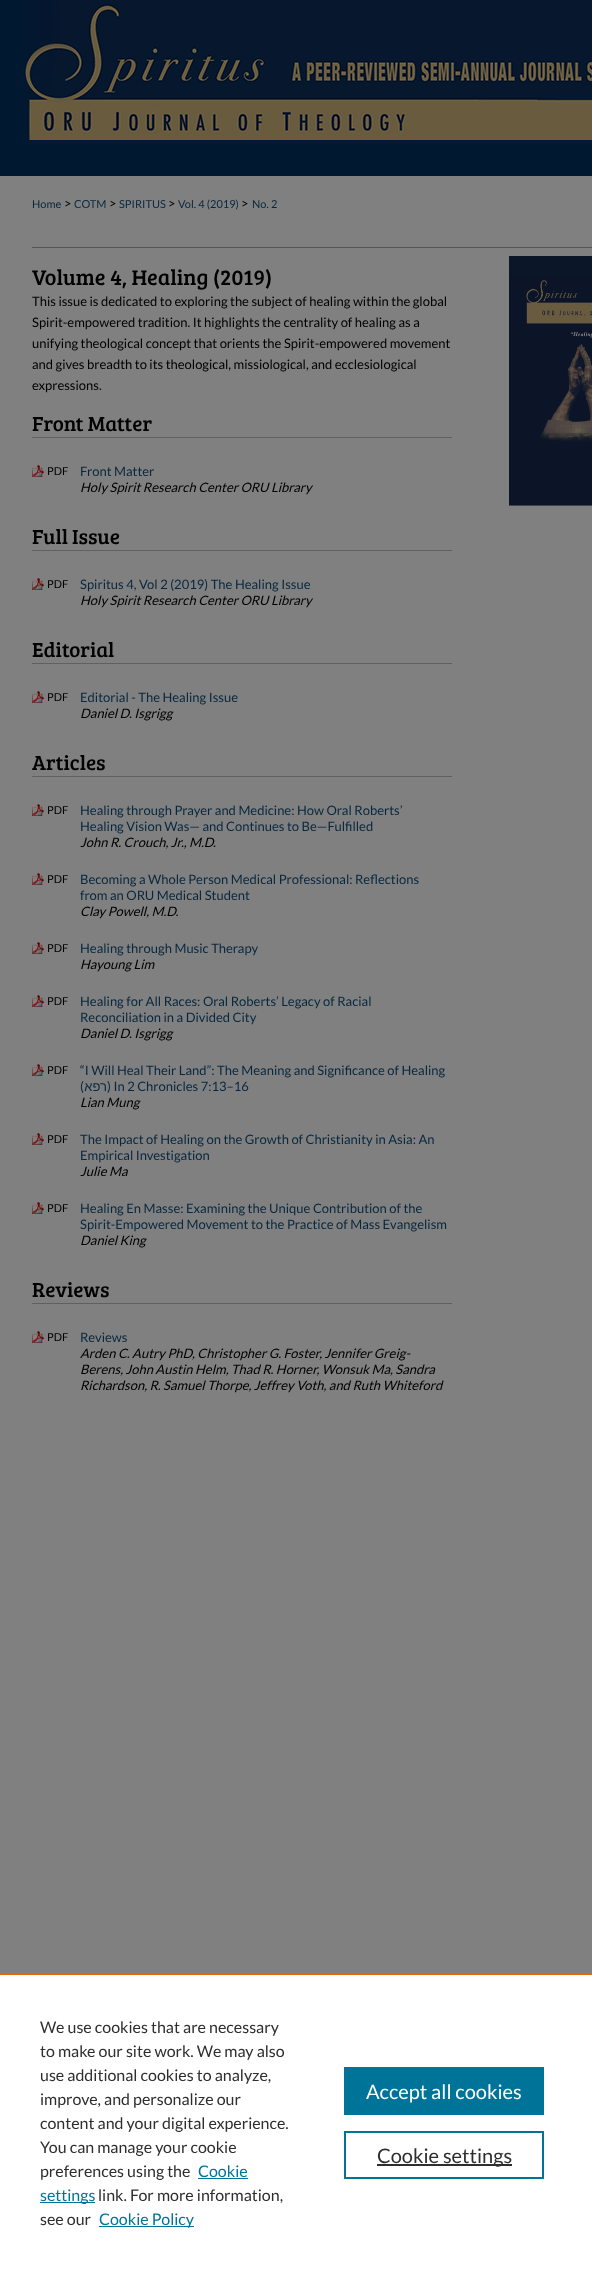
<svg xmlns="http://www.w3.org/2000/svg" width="592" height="2271">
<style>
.a{font:11px Lato;fill:#08273e}
.b{font:13px Lato;fill:#000}
.c{font:22px Bree Serif;fill:#000}
.d{font:21px Bree Serif;fill:#000}
.e{font:11px Lato;fill:#000}
.f{font:13px Lato;fill:#08273e}
.g{font:italic 13px Lato;fill:#000}
.h{font:13px Liberation Sans;direction:rtl;fill:#08273e}
.i{font:16px Lato;fill:#2e2e2e}
.j{font:16px Lato;fill:#007398}
.k{font:20px Lato;fill:#fff}
.l{font:20px Lato;fill:#2e2e2e}
</style>
<rect width="100%" height="100%" fill="#001830"/>
<image href="1.png" x="24" y="0" width="568" height="140"/>
<path fill="#808080" d="M0 176h592v1797H0z"/>
<path fill="#555" d="M32 247h560v1H32z"/>
<path fill="#606060" d="M32 437h420v1H32z"/>
<image href="2.png" x="32" y="465" width="12" height="12"/>
<path fill="#606060" d="M32 550h420v1H32z"/>
<image href="2.png" x="32" y="578" width="12" height="12"/>
<path fill="#606060" d="M32 663h420v1H32z"/>
<image href="2.png" x="32" y="691" width="12" height="12"/>
<path fill="#606060" d="M32 776h420v1H32z"/>
<image href="2.png" x="32" y="804" width="12" height="12"/>
<image href="2.png" x="32" y="873" width="12" height="12"/>
<image href="2.png" x="32" y="942" width="12" height="12"/>
<image href="2.png" x="32" y="995" width="12" height="12"/>
<image href="2.png" x="32" y="1064" width="12" height="12"/>
<image href="2.png" x="32" y="1133" width="12" height="12"/>
<image href="2.png" x="32" y="1202" width="12" height="12"/>
<path fill="#606060" d="M32 1303h420v1H32z"/>
<image href="2.png" x="32" y="1331" width="12" height="12"/>
<image href="3.png" x="509" y="256" width="83" height="250"/>
<path fill="#fff" d="M0 1975h592v296H0z"/>
<path fill="#eb6500" d="M0 1973h592v2H0z"/>
<path fill="#007398" d="M198 2178h50v1H198z"/>
<path fill="#007398" d="M40 2202h55v1H40z"/>
<path fill="#007398" d="M99 2226h95v1H99z"/>
<path fill="#007398" d="M344 2067h200v48H344z"/>
<path fill="none" stroke="#007398" stroke-width="2" d="M345 2132h198v46H345z"/>
<path fill="#2e2e2e" d="M377 2164h135v2H377z"/>
<text class="a" x="32" y="208">Home</text>
<text class="b" x="64" y="208">&gt;</text>
<text class="a" x="74" y="208">COTM</text>
<text class="b" x="109" y="208">&gt;</text>
<text class="a" x="119" y="208">SPIRITUS</text>
<text class="b" x="168" y="208">&gt;</text>
<text class="a" x="178" y="208">Vol. 4 (2019)</text>
<text class="b" x="241" y="208">&gt;</text>
<text class="a" x="252" y="208">No. 2</text>
<text class="c" x="32" y="285">Volume 4, Healing (2019)</text>
<text class="b" x="32" y="306">This issue is dedicated to exploring the subject of healing within the global</text>
<text class="b" x="32" y="327">Spirit-empowered tradition. It highlights the centrality of healing as a</text>
<text class="b" x="32" y="348">unifying theological concept that orients the Spirit-empowered movement</text>
<text class="b" x="32" y="369">and gives breadth to its theological, missiological, and ecclesiological</text>
<text class="b" x="32" y="390">expressions.</text>
<text class="d" x="32" y="431">Front Matter</text>
<text class="e" x="47" y="475">PDF</text>
<text class="f" x="80" y="476">Front Matter</text>
<text class="g" x="80" y="492">Holy Spirit Research Center ORU Library</text>
<text class="d" x="32" y="544">Full Issue</text>
<text class="e" x="47" y="588">PDF</text>
<text class="f" x="80" y="589">Spiritus 4, Vol 2 (2019) The Healing Issue</text>
<text class="g" x="80" y="605">Holy Spirit Research Center ORU Library</text>
<text class="d" x="32" y="657">Editorial</text>
<text class="e" x="47" y="701">PDF</text>
<text class="f" x="80" y="702">Editorial - The Healing Issue</text>
<text class="g" x="80" y="718">Daniel D. Isgrigg</text>
<text class="d" x="32" y="770">Articles</text>
<text class="e" x="47" y="814">PDF</text>
<text class="f" x="80" y="815">Healing through Prayer and Medicine: How Oral Roberts’</text>
<text class="f" x="80" y="831">Healing Vision Was— and Continues to Be—Fulfilled</text>
<text class="g" x="80" y="847">John R. Crouch, Jr., M.D.</text>
<text class="e" x="47" y="883">PDF</text>
<text class="f" x="80" y="884">Becoming a Whole Person Medical Professional: Reflections</text>
<text class="f" x="80" y="900">from an ORU Medical Student</text>
<text class="g" x="80" y="916">Clay Powell, M.D.</text>
<text class="e" x="47" y="952">PDF</text>
<text class="f" x="80" y="953">Healing through Music Therapy</text>
<text class="g" x="80" y="969">Hayoung Lim</text>
<text class="e" x="47" y="1005">PDF</text>
<text class="f" x="80" y="1006">Healing for All Races: Oral Roberts’ Legacy of Racial</text>
<text class="f" x="80" y="1022">Reconciliation in a Divided City</text>
<text class="g" x="80" y="1038">Daniel D. Isgrigg</text>
<text class="e" x="47" y="1074">PDF</text>
<text class="f" x="80" y="1075">“I Will Heal Their Land”: The Meaning and Significance of Healing</text>
<text class="f" x="80" y="1091">(</text>
<text class="h" x="107" y="1091">רפא</text>
<text class="f" x="107" y="1091">) In 2 Chronicles 7:13–16</text>
<text class="g" x="80" y="1107">Lian Mung</text>
<text class="e" x="47" y="1143">PDF</text>
<text class="f" x="80" y="1144">The Impact of Healing on the Growth of Christianity in Asia: An</text>
<text class="f" x="80" y="1160">Empirical Investigation</text>
<text class="g" x="80" y="1176">Julie Ma</text>
<text class="e" x="47" y="1212">PDF</text>
<text class="f" x="80" y="1213">Healing En Masse: Examining the Unique Contribution of the</text>
<text class="f" x="80" y="1229">Spirit-Empowered Movement to the Practice of Mass Evangelism</text>
<text class="g" x="80" y="1245">Daniel King</text>
<text class="d" x="32" y="1297">Reviews</text>
<text class="e" x="47" y="1341">PDF</text>
<text class="f" x="80" y="1342">Reviews</text>
<text class="g" x="80" y="1358">Arden C. Autry PhD, Christopher G. Foster, Jennifer Greig-</text>
<text class="g" x="80" y="1374">Berens, John Austin Helm, Thad R. Horner, Wonsuk Ma, Sandra</text>
<text class="g" x="80" y="1390">Richardson, R. Samuel Thorpe, Jeffrey Voth, and Ruth Whiteford</text>
<text class="i" x="40" y="2033">We use cookies that are necessary</text>
<text class="i" x="40" y="2057">to make our site work. We may also</text>
<text class="i" x="40" y="2081">use additional cookies to analyze,</text>
<text class="i" x="40" y="2105">improve, and personalize our</text>
<text class="i" x="40" y="2129">content and your digital experience.</text>
<text class="i" x="40" y="2153">You can manage your cookie</text>
<text class="i" x="40" y="2177">preferences using the</text>
<text class="j" x="198" y="2177">Cookie</text>
<text class="j" x="40" y="2201">settings</text>
<text class="i" x="98" y="2201">link. For more information,</text>
<text class="i" x="40" y="2225">see our</text>
<text class="j" x="99" y="2225">Cookie Policy</text>
<text class="k" x="366" y="2099">Accept all cookies</text>
<text class="l" x="377" y="2163">Cookie settings</text>
</svg>
